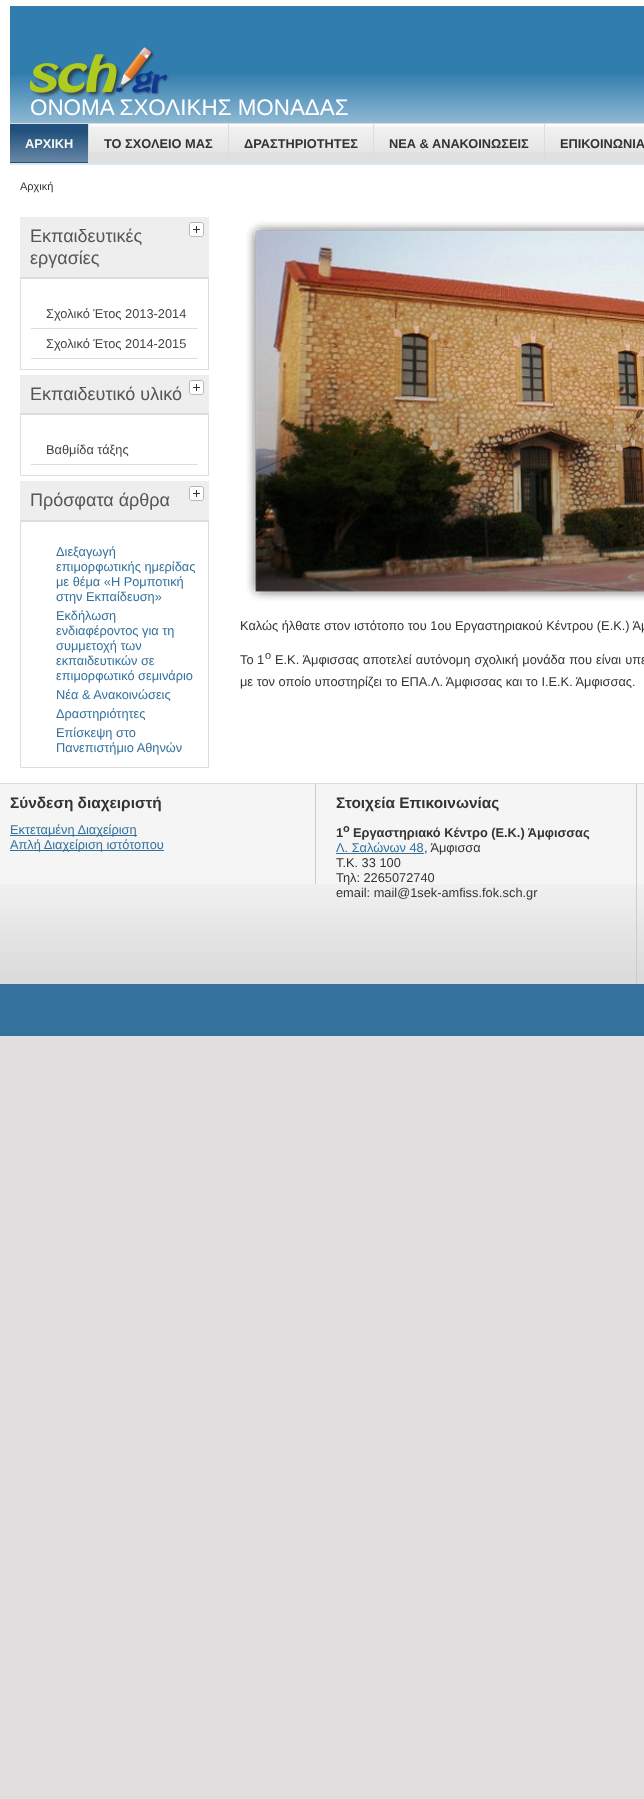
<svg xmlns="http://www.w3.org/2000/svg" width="644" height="1799">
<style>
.a{font:22.4px Liberation Sans;fill:#fff}
.b{font:bold 12.8px Liberation Sans;fill:#f5f5f5}
.c{font:bold 12.8px Liberation Sans;fill:#333}
.d{font:11px Liberation Sans;fill:#333}
.e{font:18px Liberation Sans;fill:#555}
.f{font:12.8px Liberation Sans;fill:#444}
.g{font:12.8px Liberation Sans;fill:#34719d}
.h{font:12.8px Liberation Sans;fill:#333}
.i{font:bold 15.4px Liberation Sans;fill:#333}
.j{font:bold 11px Liberation Sans;fill:#333}
</style>
<rect width="100%" height="100%" fill="#e0dedf"/>
<path fill="#fff" d="M0 0h644v783H0z"/>
<path fill="#317dae" d="M10 6h634v69H10z"/>
<image href="1.png" x="10" y="75" width="634" height="90"/>
<image href="2.png" x="30" y="47" width="139" height="50"/>
<path fill="#ddd" d="M10 123h634v1H10z"/>
<image href="3.png" x="10" y="124" width="78" height="39"/>
<path fill="#ddd" d="M88 124h1v39H88z"/>
<path fill="#e0e0e0" d="M89 152h139v11H89z"/>
<image href="4.png" x="89" y="124" width="139" height="28"/>
<path fill="#ddd" d="M228 124h1v39H228z"/>
<path fill="#e0e0e0" d="M229 152h144v11H229z"/>
<image href="5.png" x="229" y="124" width="144" height="28"/>
<path fill="#ddd" d="M373 124h1v39H373z"/>
<path fill="#e0e0e0" d="M374 152h170v11H374z"/>
<image href="6.png" x="374" y="124" width="170" height="28"/>
<path fill="#ddd" d="M544 124h1v39H544z"/>
<path fill="#e0e0e0" d="M545 152h99v11H545z"/>
<image href="7.png" x="545" y="124" width="99" height="28"/>
<path fill="#eee" d="M20 217h189v60H20z"/>
<path fill="#ddd" d="M20 277h189v1H20z"/>
<image href="8.png" x="189" y="222" width="15" height="15"/>
<path fill="none" stroke="#ddd" d="M20.5 278.5h188v91H20.5z"/>
<path fill="#ddd" d="M31 328h167v1H31z"/>
<path fill="#ddd" d="M31 358h167v1H31z"/>
<path fill="#eee" d="M20 375h189v38H20z"/>
<path fill="#ddd" d="M20 413h189v1H20z"/>
<image href="8.png" x="189" y="380" width="15" height="15"/>
<path fill="none" stroke="#ddd" d="M20.5 414.5h188v61H20.5z"/>
<path fill="#ddd" d="M31 464h167v1H31z"/>
<path fill="#eee" d="M20 481h189v39H20z"/>
<path fill="#ddd" d="M20 520h189v1H20z"/>
<image href="8.png" x="189" y="486" width="15" height="15"/>
<path fill="none" stroke="#ddd" d="M20.5 521.5h188v246H20.5z"/>
<image href="9.png" x="246" y="221" width="398" height="380"/>
<path fill="#f5f5f5" d="M0 784h644v100H0z"/>
<image href="10.png" x="0" y="884" width="644" height="100"/>
<path fill="#ddd" d="M0 783h644v1H0z"/>
<path fill="#ccc" d="M315 784h1v100H315z"/>
<path fill="#34719d" d="M10 835h127v1H10z"/>
<path fill="#34719d" d="M10 850h154v1H10z"/>
<path fill="#34719d" d="M336 853h88v1H336z"/>
<path fill="#ccc" d="M636 784h1v200H636z"/>
<path fill="#34719d" d="M0 984h644v52H0z"/>
<text class="a" x="30" y="115">ΟΝΟΜΑ ΣΧΟΛΙΚΗΣ ΜΟΝΑΔΑΣ</text>
<text class="b" x="25" y="148">ΑΡΧΙΚΗ</text>
<text class="c" x="104" y="148">ΤΟ ΣΧΟΛΕΙΟ ΜΑΣ</text>
<text class="c" x="244" y="148">ΔΡΑΣΤΗΡΙΟΤΗΤΕΣ</text>
<text class="c" x="389" y="148">ΝΕΑ &amp; ΑΝΑΚΟΙΝΩΣΕΙΣ</text>
<text class="c" x="560" y="148">ΕΠΙΚΟΙΝΩΝΙΑ</text>
<text class="d" x="20" y="190">Αρχική</text>
<text class="e" x="30" y="242">Εκπαιδευτικές</text>
<text class="e" x="30" y="264">εργασίες</text>
<text class="f" x="46" y="318">Σχολικό Έτος 2013-2014</text>
<text class="f" x="46" y="348">Σχολικό Έτος 2014-2015</text>
<text class="e" x="30" y="400">Εκπαιδευτικό υλικό</text>
<text class="f" x="46" y="454">Βαθμίδα τάξης</text>
<text class="e" x="30" y="506">Πρόσφατα άρθρα</text>
<text class="g" x="56" y="556">Διεξαγωγή</text>
<text class="g" x="56" y="571">επιμορφωτικής ημερίδας</text>
<text class="g" x="56" y="586">με θέμα «Η Ρομποτική</text>
<text class="g" x="56" y="601">στην Εκπαίδευση»</text>
<text class="g" x="56" y="620">Εκδήλωση</text>
<text class="g" x="56" y="635">ενδιαφέροντος για τη</text>
<text class="g" x="56" y="650">συμμετοχή των</text>
<text class="g" x="56" y="665">εκπαιδευτικών σε</text>
<text class="g" x="56" y="680">επιμορφωτικό σεμινάριο</text>
<text class="g" x="56" y="699">Νέα &amp; Ανακοινώσεις</text>
<text class="g" x="56" y="718">Δραστηριότητες</text>
<text class="g" x="56" y="737">Επίσκεψη στο</text>
<text class="g" x="56" y="752">Πανεπιστήμιο Αθηνών</text>
<text class="h" x="240" y="630">Καλώς ήλθατε στον ιστότοπο του 1ου Εργαστηριακού Κέντρου (Ε.Κ.) Άμ</text>
<text class="h" x="240" y="664">Το 1</text>
<text class="d" x="265" y="659">ο</text>
<text class="h" x="275" y="664" word-spacing="0.5">Ε.Κ. Άμφισσας αποτελεί αυτόνομη σχολική μονάδα που είναι υπε</text>
<text class="h" x="240" y="686">με τον οποίο υποστηρίζει το ΕΠΑ.Λ. Άμφισσας και το Ι.Ε.Κ. Άμφισσας.</text>
<text class="i" x="10" y="808">Σύνδεση διαχειριστή</text>
<text class="g" x="10" y="834">Εκτεταμένη Διαχείριση</text>
<text class="g" x="10" y="849">Απλή Διαχείριση ιστότοπου</text>
<text class="i" x="336" y="808">Στοιχεία Επικοινωνίας</text>
<text class="c" x="336" y="837">1</text>
<text class="j" x="343" y="832">ο</text>
<text class="c" x="353" y="837">Εργαστηριακό Κέντρο (Ε.Κ.) Άμφισσας</text>
<text class="g" x="336" y="852">Λ. Σαλώνων 48</text>
<text class="h" x="424" y="852">, Άμφισσα</text>
<text class="h" x="336" y="867">Τ.Κ. 33 100</text>
<text class="h" x="336" y="882">Τηλ: 2265072740</text>
<text class="h" x="336" y="897">email: mail@1sek-amfiss.fok.sch.gr</text>
</svg>
